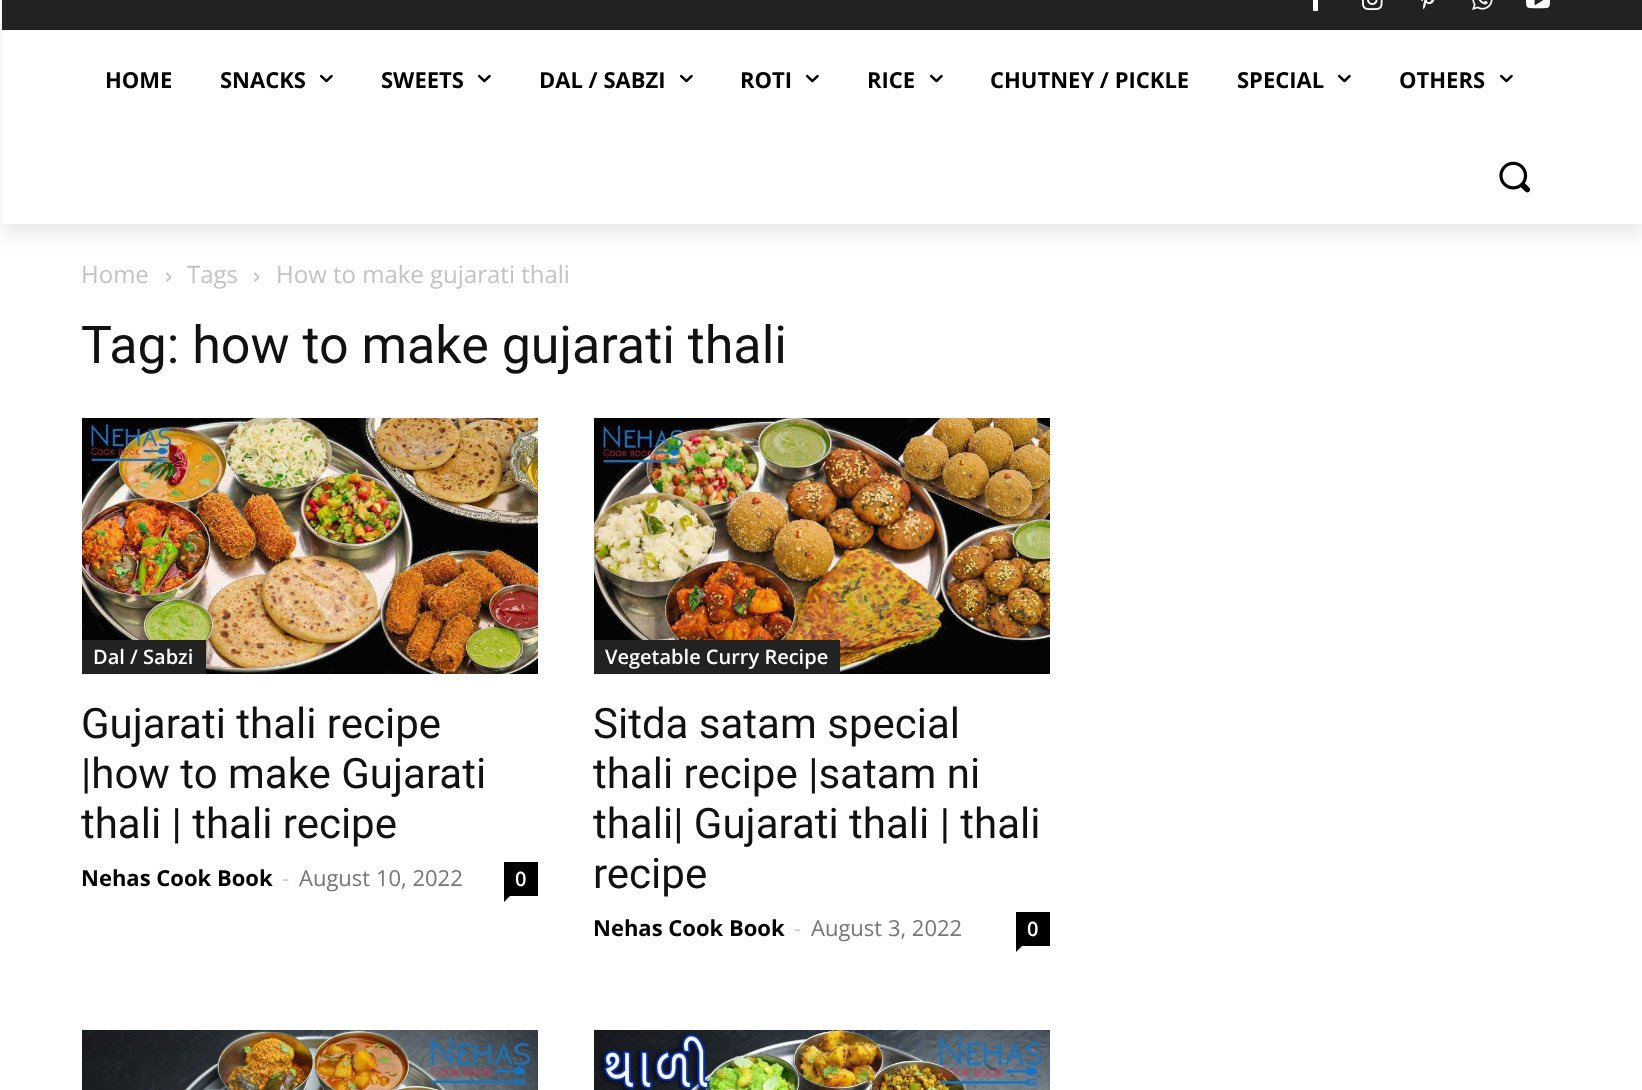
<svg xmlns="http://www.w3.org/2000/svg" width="1642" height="1090">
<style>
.a{font:bold 22px Open Sans;fill:#000}
.b{font:24px Open Sans;fill:#c3c3c3}
.c{font:52px Roboto;fill:#111}
.d{font:600 20px Open Sans;fill:#fff}
.e{font:42px Roboto;fill:#111}
.f{font:22px Open Sans;fill:#ccc}
.g{font:22px Open Sans;fill:#767676}
</style>
<defs>
<clipPath id="clip1"><path d="M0 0h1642v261h-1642zm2-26h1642v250h-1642z" clip-rule="evenodd"/></clipPath>
</defs>
<rect width="100%" height="100%" fill="#fff"/>
<path fill="#222" d="M2 0h1640v30H2z"/>
<path fill="#fff" d="M1313 0h5v11H1313z"/>
<image href="1.png" x="1362" y="0" width="21" height="10"/>
<image href="2.png" x="1420" y="0" width="15" height="10"/>
<image href="3.png" x="1472" y="0" width="21" height="10"/>
<image href="4.png" x="1526" y="0" width="24" height="9"/>
<g clip-path="url(#clip1)">
<path fill="#00000014" filter="blur(8px)" d="M2 -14h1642v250H2z"/>
</g>
<image href="5.png" x="320" y="74" width="13" height="9"/>
<image href="5.png" x="478" y="74" width="13" height="9"/>
<image href="5.png" x="680" y="74" width="13" height="9"/>
<image href="5.png" x="806" y="74" width="13" height="9"/>
<image href="5.png" x="930" y="74" width="13" height="9"/>
<image href="5.png" x="1338" y="74" width="13" height="9"/>
<image href="5.png" x="1500" y="74" width="13" height="9"/>
<image href="6.png" x="1499" y="161" width="32" height="32"/>
<image href="7.png" x="166" y="272" width="6" height="10"/>
<image href="7.png" x="254" y="272" width="6" height="10"/>
<image href="8.png" x="82" y="418" width="456" height="256"/>
<path fill="#222" d="M82 640h124v34H82z"/>
<path fill="#000" d="M504 862h34v34H504z"/>
<path fill="#000" d="M504 896h6l-6 6z"/>
<image href="9.png" x="594" y="418" width="456" height="256"/>
<path fill="#222" d="M594 640h246v34H594z"/>
<path fill="#000" d="M1016 912h34v34H1016z"/>
<path fill="#000" d="M1016 946h6l-6 6z"/>
<image href="10.png" x="82" y="1030" width="456" height="60"/>
<image href="11.png" x="594" y="1030" width="456" height="60"/>
<text class="a" x="105" y="88">HOME</text>
<text class="a" x="220" y="88">SNACKS</text>
<text class="a" x="381" y="88">SWEETS</text>
<text class="a" x="539" y="88">DAL / SABZI</text>
<text class="a" x="740" y="88">ROTI</text>
<text class="a" x="867" y="88">RICE</text>
<text class="a" x="990" y="88">CHUTNEY / PICKLE</text>
<text class="a" x="1237" y="88">SPECIAL</text>
<text class="a" x="1399" y="88">OTHERS</text>
<text class="b" x="81" y="283">Home</text>
<text class="b" x="187" y="283">Tags</text>
<text class="b" x="276" y="283">How to make gujarati thali</text>
<text class="c" x="81" y="363">Tag: how to make gujarati thali</text>
<text class="d" x="93" y="664">Dal / Sabzi</text>
<text class="e" x="81" y="738">Gujarati thali recipe</text>
<text class="e" x="81" y="788">|how to make Gujarati</text>
<text class="e" x="81" y="838">thali | thali recipe</text>
<text class="a" x="81" y="886">Nehas Cook Book</text>
<text class="f" x="282" y="886">-</text>
<text class="g" x="299" y="886">August 10, 2022</text>
<text class="d" x="515" y="886">0</text>
<text class="d" x="605" y="664">Vegetable Curry Recipe</text>
<text class="e" x="593" y="738">Sitda satam special</text>
<text class="e" x="593" y="788">thali recipe |satam ni</text>
<text class="e" x="593" y="838">thali| Gujarati thali | thali</text>
<text class="e" x="593" y="888">recipe</text>
<text class="a" x="593" y="936">Nehas Cook Book</text>
<text class="f" x="794" y="936">-</text>
<text class="g" x="811" y="936">August 3, 2022</text>
<text class="d" x="1027" y="936">0</text>
</svg>
